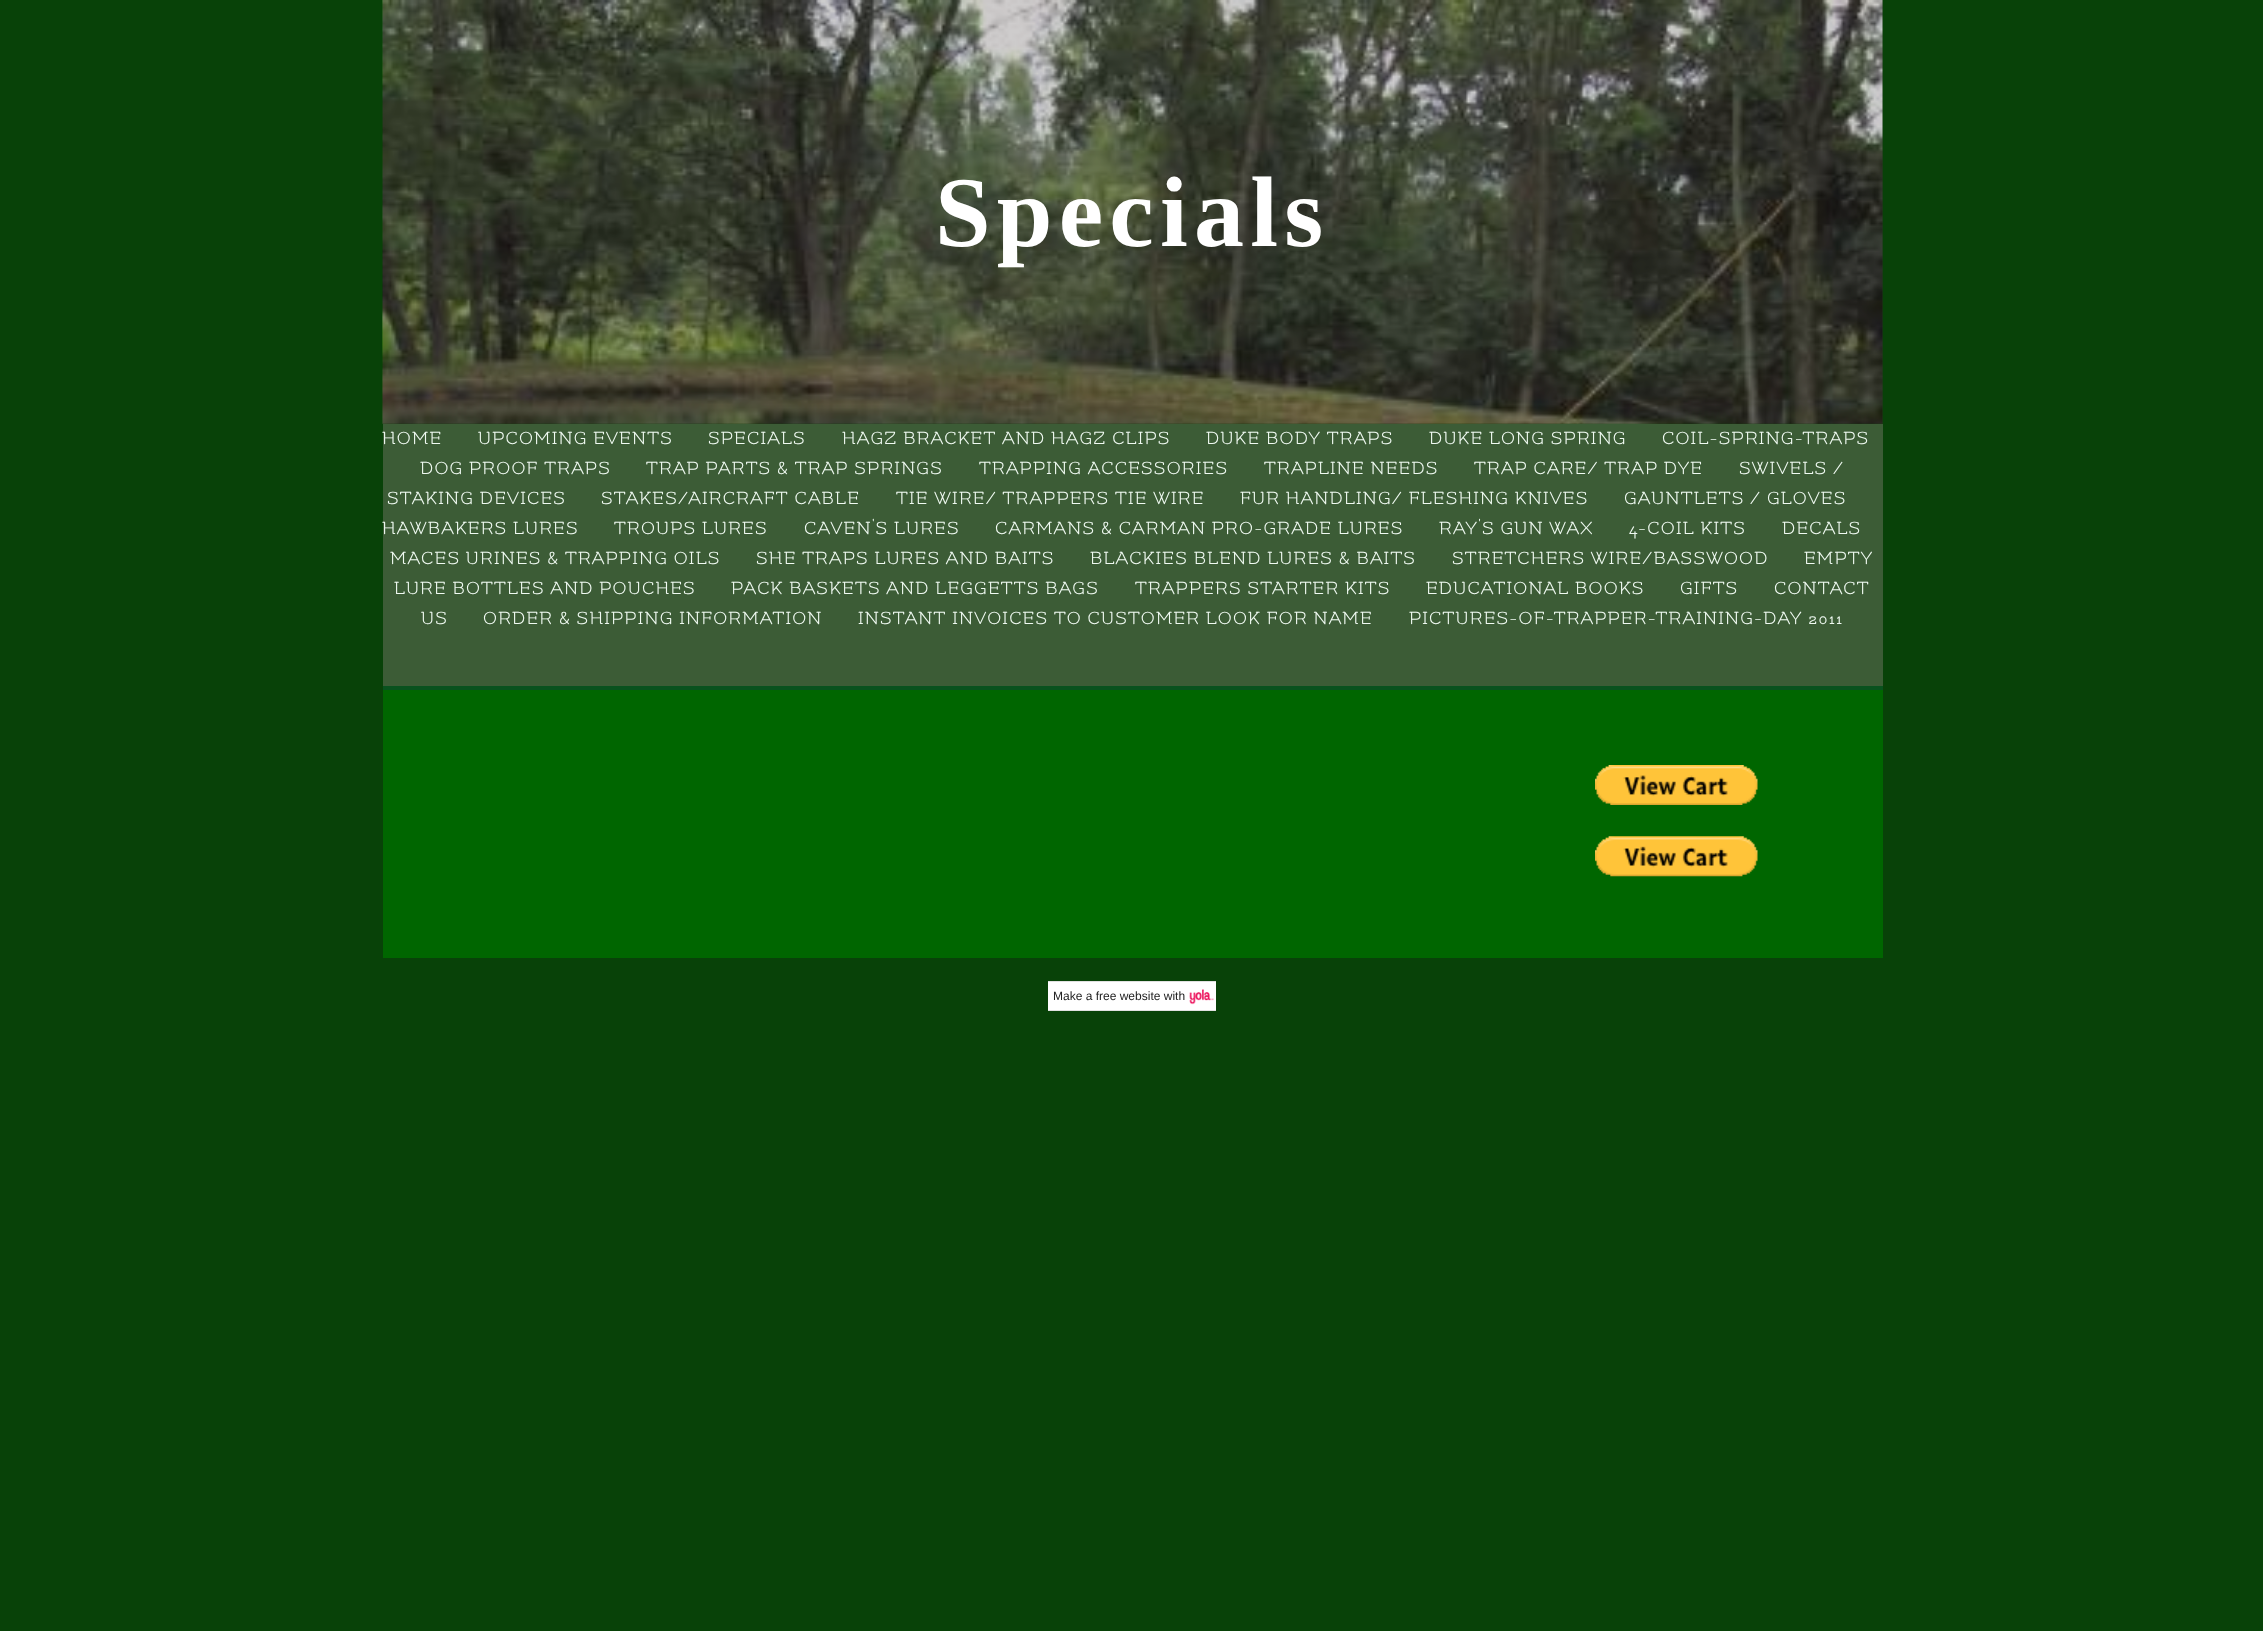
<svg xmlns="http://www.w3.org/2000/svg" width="2263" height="1631">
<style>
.a{font:bold 100px Liberation Serif;letter-spacing:6.25px;fill:#fff}
.b{font:20px Flamenco;letter-spacing:1.25px;fill:#f0faf2}
.c{font:12px Liberation Sans;fill:#222}
</style>
<rect width="100%" height="100%" fill="#084208"/>
<path fill="#153e12" d="M383 0h1500v424H383z"/>
<image href="1.png" x="382" y="0" width="1501" height="424"/>
<path fill="#3c5c36" d="M383 424h1500v262H383z"/>
<path fill="#09521e" d="M383 686h1500v4H383z"/>
<path fill="#060" d="M383 690h1500v268H383z"/>
<image href="2.png" x="1595" y="765" width="163" height="40"/>
<image href="3.png" x="1595" y="836" width="163" height="41"/>
<path fill="#fff" d="M1048 982h168v28H1048z"/>
<image href="4.png" x="1189" y="989" width="25" height="16"/>
<path fill="#e1e1e1" d="M1048 981h168v1H1048z"/>
<path fill="#e1e1e1" d="M1048 1010h168v1H1048z"/>
<text class="a" x="935" y="246">Specials</text>
<text class="b" x="382" y="444">HOME</text>
<text class="b" x="478" y="444">UPCOMING EVENTS</text>
<text class="b" x="708" y="444">SPECIALS</text>
<text class="b" x="842" y="444">HAGZ BRACKET AND HAGZ CLIPS</text>
<text class="b" x="1206" y="444">DUKE BODY TRAPS</text>
<text class="b" x="1429" y="444">DUKE LONG SPRING</text>
<text class="b" x="1662" y="444">COIL-SPRING-TRAPS</text>
<text class="b" x="420" y="474">DOG PROOF TRAPS</text>
<text class="b" x="646" y="474">TRAP PARTS &amp; TRAP SPRINGS</text>
<text class="b" x="979" y="474">TRAPPING ACCESSORIES</text>
<text class="b" x="1264" y="474">TRAPLINE NEEDS</text>
<text class="b" x="1474" y="474">TRAP CARE/ TRAP DYE</text>
<text class="b" x="1739" y="474">SWIVELS /</text>
<text class="b" x="387" y="504">STAKING DEVICES</text>
<text class="b" x="601" y="504">STAKES/AIRCRAFT CABLE</text>
<text class="b" x="896" y="504">TIE WIRE/ TRAPPERS TIE WIRE</text>
<text class="b" x="1240" y="504">FUR HANDLING/ FLESHING KNIVES</text>
<text class="b" x="1624" y="504">GAUNTLETS / GLOVES</text>
<text class="b" x="382" y="534">HAWBAKERS LURES</text>
<text class="b" x="614" y="534">TROUPS LURES</text>
<text class="b" x="804" y="534">CAVEN'S LURES</text>
<text class="b" x="995" y="534">CARMANS &amp; CARMAN PRO-GRADE LURES</text>
<text class="b" x="1439" y="534">RAY'S GUN WAX</text>
<text class="b" x="1629" y="534">4-COIL KITS</text>
<text class="b" x="1782" y="534">DECALS</text>
<text class="b" x="390" y="564">MACES URINES &amp; TRAPPING OILS</text>
<text class="b" x="756" y="564">SHE TRAPS LURES AND BAITS</text>
<text class="b" x="1090" y="564">BLACKIES BLEND LURES &amp; BAITS</text>
<text class="b" x="1452" y="564">STRETCHERS WIRE/BASSWOOD</text>
<text class="b" x="1804" y="564">EMPTY</text>
<text class="b" x="394" y="594">LURE BOTTLES AND POUCHES</text>
<text class="b" x="731" y="594">PACK BASKETS AND LEGGETTS BAGS</text>
<text class="b" x="1135" y="594">TRAPPERS STARTER KITS</text>
<text class="b" x="1426" y="594">EDUCATIONAL BOOKS</text>
<text class="b" x="1680" y="594">GIFTS</text>
<text class="b" x="1774" y="594">CONTACT</text>
<text class="b" x="421" y="624">US</text>
<text class="b" x="483" y="624">ORDER &amp; SHIPPING INFORMATION</text>
<text class="b" x="858" y="624">INSTANT INVOICES TO CUSTOMER LOOK FOR NAME</text>
<text class="b" x="1409" y="624">PICTURES-OF-TRAPPER-TRAINING-DAY 2011</text>
<text class="c" x="1053" y="1000">Make a free website with</text>
</svg>
